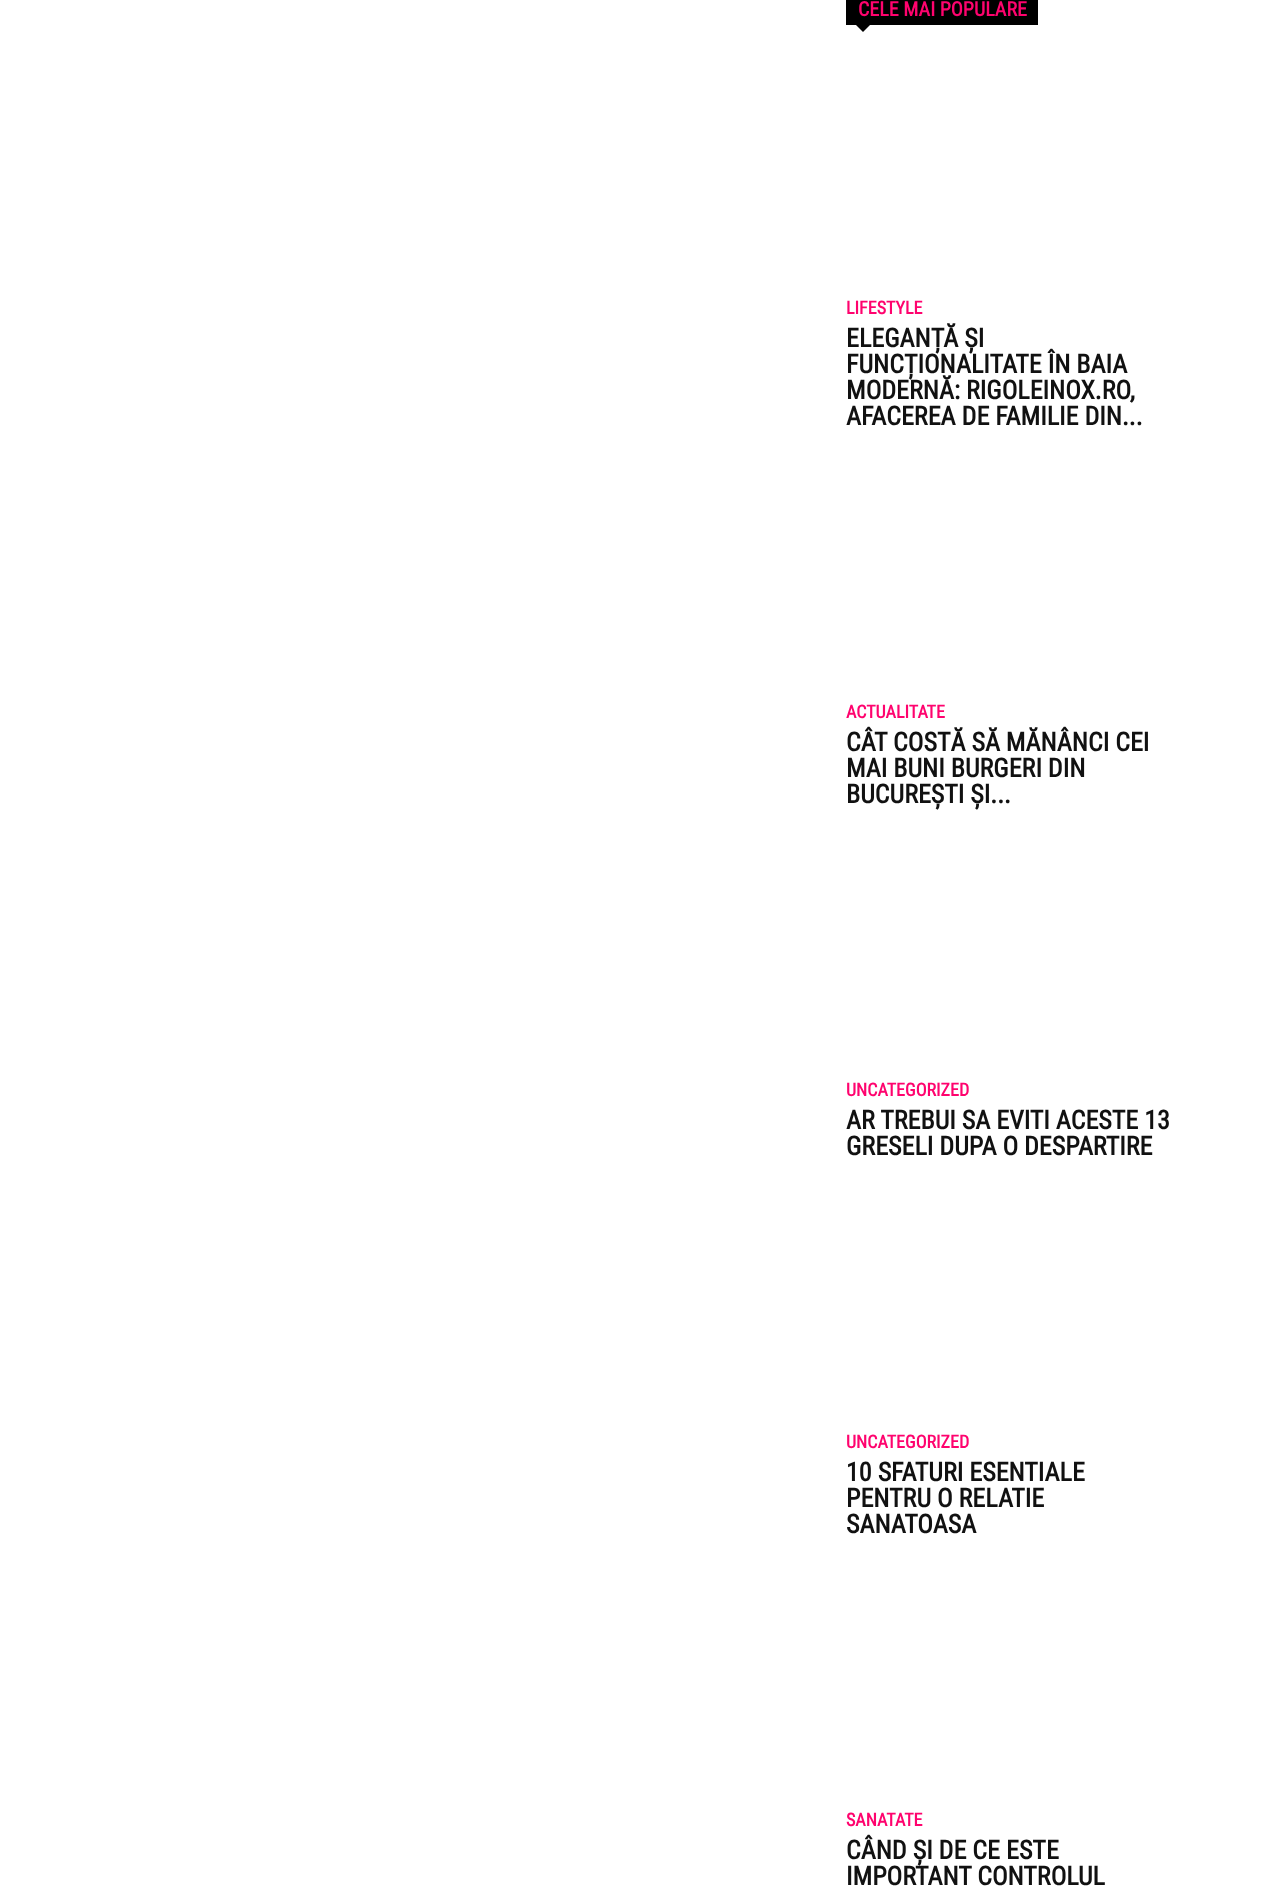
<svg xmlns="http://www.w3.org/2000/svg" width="1271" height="1886">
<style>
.a{font:bold 20px Roboto Condensed;fill:#ff036e}
.b{font:bold 18px Roboto Condensed;fill:#ff036e}
.c{font:bold 26px Roboto Condensed;fill:#111}
</style>
<rect width="100%" height="100%" fill="#fff"/>
<path fill="#000" d="M846 0h192v25H846z"/>
<path fill="#000" d="M856 25h14l-7 7z"/>
<text class="a" x="858" y="16">CELE MAI POPULARE</text>
<text class="b" x="846" y="314">LIFESTYLE</text>
<text class="c" x="846" y="347">ELEGANȚĂ ȘI</text>
<text class="c" x="846" y="373">FUNCȚIONALITATE ÎN BAIA</text>
<text class="c" x="846" y="399">MODERNĂ: RIGOLEINOX.RO,</text>
<text class="c" x="846" y="425">AFACEREA DE FAMILIE DIN...</text>
<text class="b" x="846" y="718">ACTUALITATE</text>
<text class="c" x="846" y="751">CÂT COSTĂ SĂ MĂNÂNCI CEI</text>
<text class="c" x="846" y="777">MAI BUNI BURGERI DIN</text>
<text class="c" x="846" y="803">BUCUREȘTI ȘI...</text>
<text class="b" x="846" y="1096">UNCATEGORIZED</text>
<text class="c" x="846" y="1129">AR TREBUI SA EVITI ACESTE 13</text>
<text class="c" x="846" y="1155">GRESELI DUPA O DESPARTIRE</text>
<text class="b" x="846" y="1448">UNCATEGORIZED</text>
<text class="c" x="846" y="1481">10 SFATURI ESENTIALE</text>
<text class="c" x="846" y="1507">PENTRU O RELATIE</text>
<text class="c" x="846" y="1533">SANATOASA</text>
<text class="b" x="846" y="1826">SANATATE</text>
<text class="c" x="846" y="1859">CÂND ȘI DE CE ESTE</text>
<text class="c" x="846" y="1885">IMPORTANT CONTROLUL</text>
</svg>
